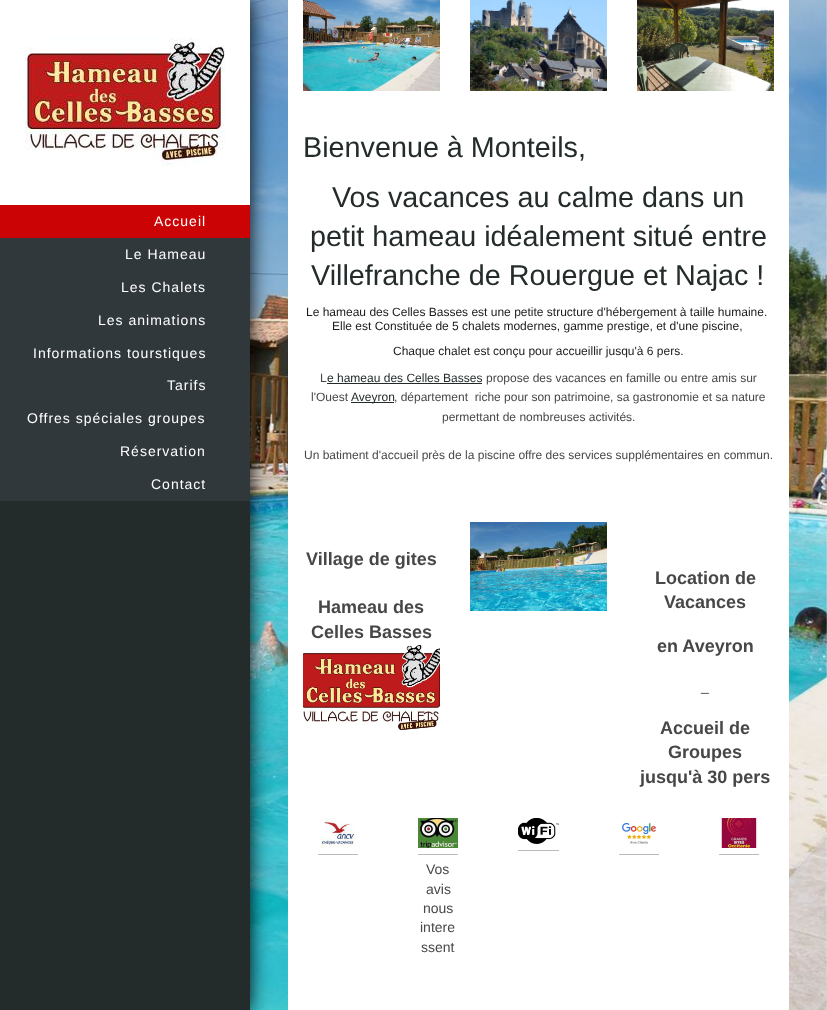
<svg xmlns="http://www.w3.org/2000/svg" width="827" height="1010">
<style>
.a{font:28.75px Liberation Sans;fill:#242b2b}
.b{font:12px Liberation Sans;fill:#1a1a1a}
.c{font:12px Liberation Sans;fill:#474747}
.d{font:12px Liberation Sans;fill:#242b2b}
.e{font:bold 18px Liberation Sans;fill:#474747}
.f{font:14px Liberation Sans;fill:#474747}
.g{font:14px Liberation Sans;letter-spacing:1px;fill:#fff}
</style>
<rect width="100%" height="100%" fill="#fff"/>
<image href="1.png" x="250" y="0" width="577" height="1010"/>
<path fill="#000" filter="blur(10px)" d="M0 0h250v1010H0z"/>
<path fill="#242b2b" d="M0 501h250v509H0z"/>
<path fill="#fff" d="M288 0h501v1010H288z"/>
<image href="2.png" x="303" y="0" width="137" height="91"/>
<image href="3.png" x="470" y="0" width="137" height="91"/>
<image href="4.png" x="637" y="0" width="137" height="91"/>
<path fill="#242b2b" d="M327 383h155v1H327z"/>
<path fill="#242b2b" d="M351 402h43v1H351z"/>
<image href="5.png" x="303" y="644" width="137" height="87"/>
<image href="6.png" x="470" y="522" width="137" height="89"/>
<image href="7.png" x="319" y="818" width="38" height="30"/>
<path fill="#bababa" d="M318 854h40v1H318z"/>
<image href="8.png" x="518" y="818" width="41" height="26"/>
<path fill="#bababa" d="M518 850h41v1H518z"/>
<image href="9.png" x="621" y="822" width="35" height="22"/>
<path fill="#bababa" d="M619 854h40v1H619z"/>
<image href="10.png" x="720" y="818" width="38" height="30"/>
<path fill="#bababa" d="M719 854h40v1H719z"/>
<image href="11.png" x="418" y="818" width="40" height="30"/>
<path fill="#bababa" d="M418 854h40v1H418z"/>
<path fill="#fff" d="M0 0h250v205H0z"/>
<image href="12.png" x="25" y="38" width="200" height="128"/>
<path fill="#30383c" d="M0 238h250v263H0z"/>
<path fill="#cc0305" d="M0 205h250v33H0z"/>
<text class="a" x="303" y="157">Bienvenue à Monteils,</text>
<text class="a" x="332" y="207">Vos vacances au calme dans un</text>
<text class="a" x="310" y="246">petit hameau idéalement situé entre</text>
<text class="a" x="311" y="285">Villefranche de Rouergue et Najac !</text>
<text class="b" x="306" y="316">Le hameau des Celles Basses est une petite structure d'hébergement à taille humaine.</text>
<text class="b" x="332" y="330">Elle est Constituée de 5 chalets modernes, gamme prestige, et d'une piscine,</text>
<text class="b" x="393" y="355">Chaque chalet est conçu pour accueillir jusqu'à 6 pers.</text>
<text class="c" x="320" y="382">L</text>
<text class="d" x="327" y="382">e hameau des Celles Basses</text>
<text class="c" x="486" y="382">propose des vacances en famille ou entre amis sur</text>
<text class="c" x="311" y="401">l'Ouest</text>
<text class="d" x="351" y="401">Aveyron</text>
<text class="c" xml:space="preserve" x="394" y="401">, département  riche pour son patrimoine, sa gastronomie et sa nature</text>
<text class="c" x="442" y="421">permettant de nombreuses activités.</text>
<text class="c" x="304" y="459">Un batiment d'accueil près de la piscine offre des services supplémentaires en commun.</text>
<text class="e" x="306" y="565">Village de gites</text>
<text class="e" x="318" y="613">Hameau des</text>
<text class="e" x="311" y="638">Celles Basses</text>
<text class="e" x="655" y="584">Location de</text>
<text class="e" x="664" y="608">Vacances</text>
<text class="e" x="657" y="652">en Aveyron</text>
<text class="f" x="701" y="691">_</text>
<text class="e" x="660" y="734">Accueil de</text>
<text class="e" x="668" y="758">Groupes</text>
<text class="e" x="640" y="783">jusqu'à 30 pers</text>
<text class="f" x="426" y="874">Vos</text>
<text class="f" x="426" y="894">avis</text>
<text class="f" x="423" y="913">nous</text>
<text class="f" x="420" y="932">intere</text>
<text class="f" x="421" y="952">ssent</text>
<text class="g" x="154" y="226">Accueil</text>
<text class="g" x="125" y="259">Le Hameau</text>
<text class="g" x="121" y="292">Les Chalets</text>
<text class="g" x="98" y="325">Les animations</text>
<text class="g" x="33" y="358">Informations tourstiques</text>
<text class="g" x="167" y="390">Tarifs</text>
<text class="g" x="27" y="423">Offres spéciales groupes</text>
<text class="g" x="120" y="456">Réservation</text>
<text class="g" x="151" y="489">Contact</text>
</svg>
